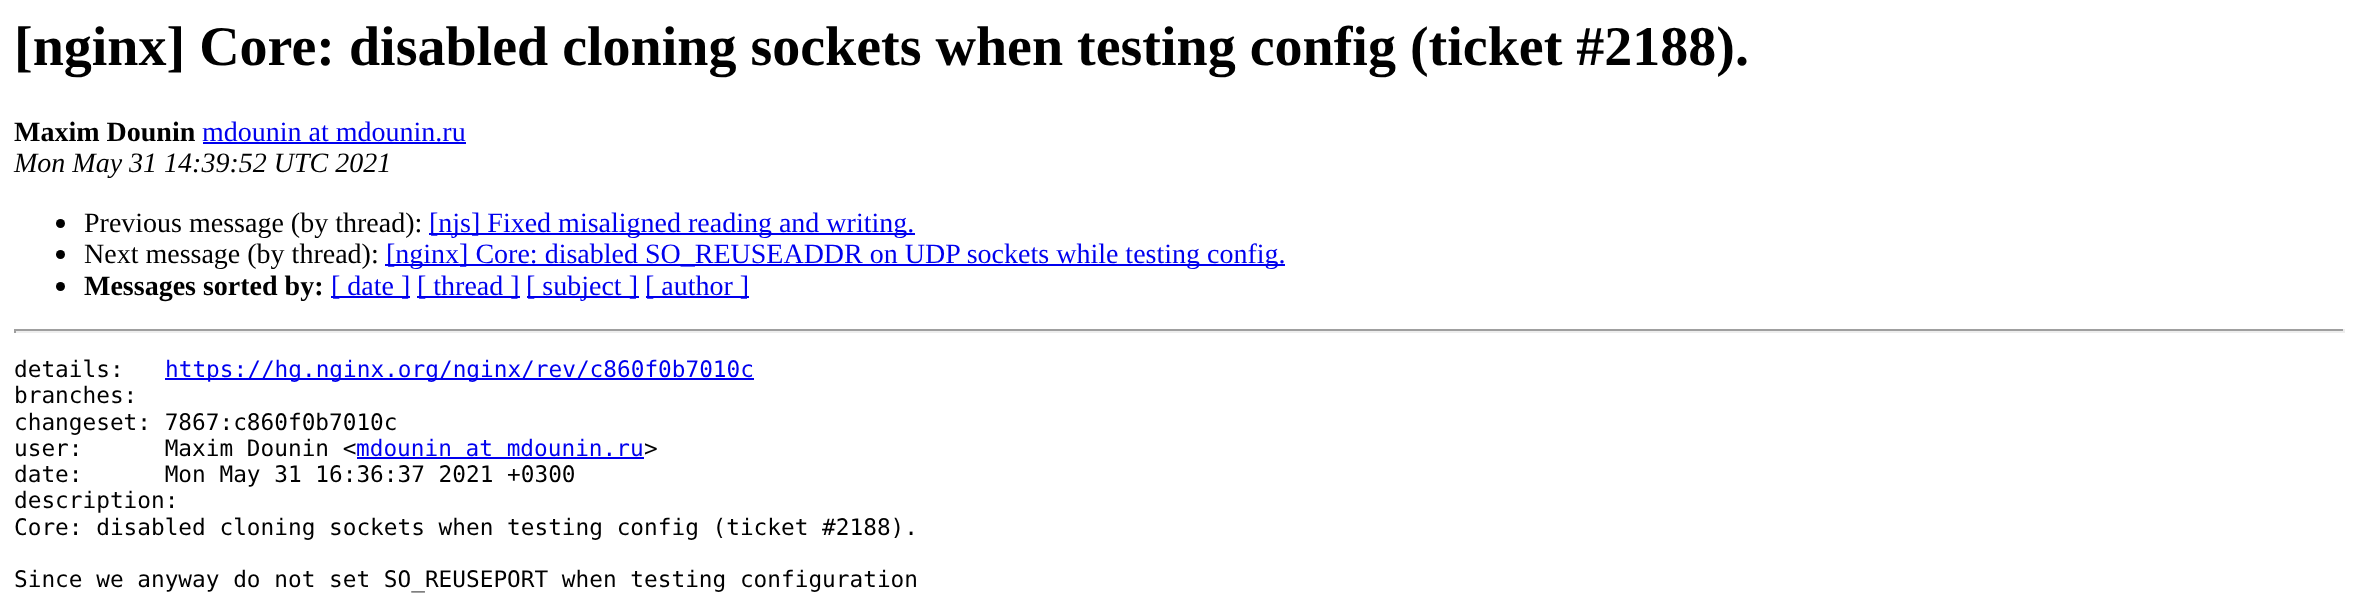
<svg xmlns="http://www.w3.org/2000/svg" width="2358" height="594">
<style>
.a{font:bold 56px Liberation Serif;fill:#000}
.b{font:bold 28px Liberation Serif;fill:#000}
.c{font:28px Liberation Serif;fill:#00e}
.d{font:italic 28px Liberation Serif;fill:#000}
.e{font:28px Liberation Serif;fill:#000}
.f{font:22.75px DejaVu Sans Mono;fill:#000}
.g{font:22.75px DejaVu Sans Mono;fill:#00e}
</style>
<rect width="100%" height="100%" fill="#fff"/>
<path fill="#00e" d="M203 142h263v2H203z"/>
<circle fill="#000" cx="60.5" cy="223.5" r="4.5"/>
<path fill="#00e" d="M429 233h486v2H429z"/>
<circle fill="#000" cx="60.5" cy="254.5" r="4.5"/>
<path fill="#00e" d="M385 264h900v2H385z"/>
<circle fill="#000" cx="60.5" cy="286.5" r="4.5"/>
<path fill="#00e" d="M331 296h79v2H331z"/>
<path fill="#00e" d="M417 296h103v2H417z"/>
<path fill="#00e" d="M527 296h112v2H527z"/>
<path fill="#00e" d="M646 296h103v2H646z"/>
<path fill="#9f9f9f" d="M14 329h2331v2H14z"/>
<path fill="#eee" d="M2343 329h2v4H2343z"/>
<path fill="#eee" d="M14 331h2331v2H14z"/>
<path fill="#9f9f9f" d="M14 329h2v4H14z"/>
<path fill="#00e" d="M165 378h589v2H165z"/>
<path fill="#00e" d="M357 457h287v2H357z"/>
<text class="a" x="14" y="65">[nginx] Core: disabled cloning sockets when testing config (ticket #2188).</text>
<text class="b" x="14" y="141">Maxim Dounin</text>
<text class="c" x="202" y="141">mdounin at mdounin.ru</text>
<text class="d" x="14" y="172">Mon May 31 14:39:52 UTC 2021</text>
<text class="e" x="84" y="232">Previous message (by thread):</text>
<text class="c" x="429" y="232">[njs] Fixed misaligned reading and writing.</text>
<text class="e" x="84" y="263">Next message (by thread):</text>
<text class="c" x="386" y="263">[nginx] Core: disabled SO_REUSEADDR on UDP sockets while testing config.</text>
<text class="b" x="84" y="295">Messages sorted by:</text>
<text class="c" x="331" y="295">[ date ]</text>
<text class="c" x="417" y="295">[ thread ]</text>
<text class="c" x="526" y="295">[ subject ]</text>
<text class="c" x="645" y="295">[ author ]</text>
<text class="f" x="14" y="377">details:</text>
<text class="g" x="165" y="377">https://hg.nginx.org/nginx/rev/c860f0b7010c</text>
<text class="f" x="14" y="403">branches:</text>
<text class="f" x="14" y="430">changeset: 7867:c860f0b7010c</text>
<text class="f" xml:space="preserve" x="14" y="456">user:      Maxim Dounin &lt;</text>
<text class="g" x="356" y="456">mdounin at mdounin.ru</text>
<text class="f" x="644" y="456">&gt;</text>
<text class="f" xml:space="preserve" x="14" y="482">date:      Mon May 31 16:36:37 2021 +0300</text>
<text class="f" x="14" y="508">description:</text>
<text class="f" x="14" y="535">Core: disabled cloning sockets when testing config (ticket #2188).</text>
<text class="f" x="14" y="587">Since we anyway do not set SO_REUSEPORT when testing configuration</text>
</svg>
